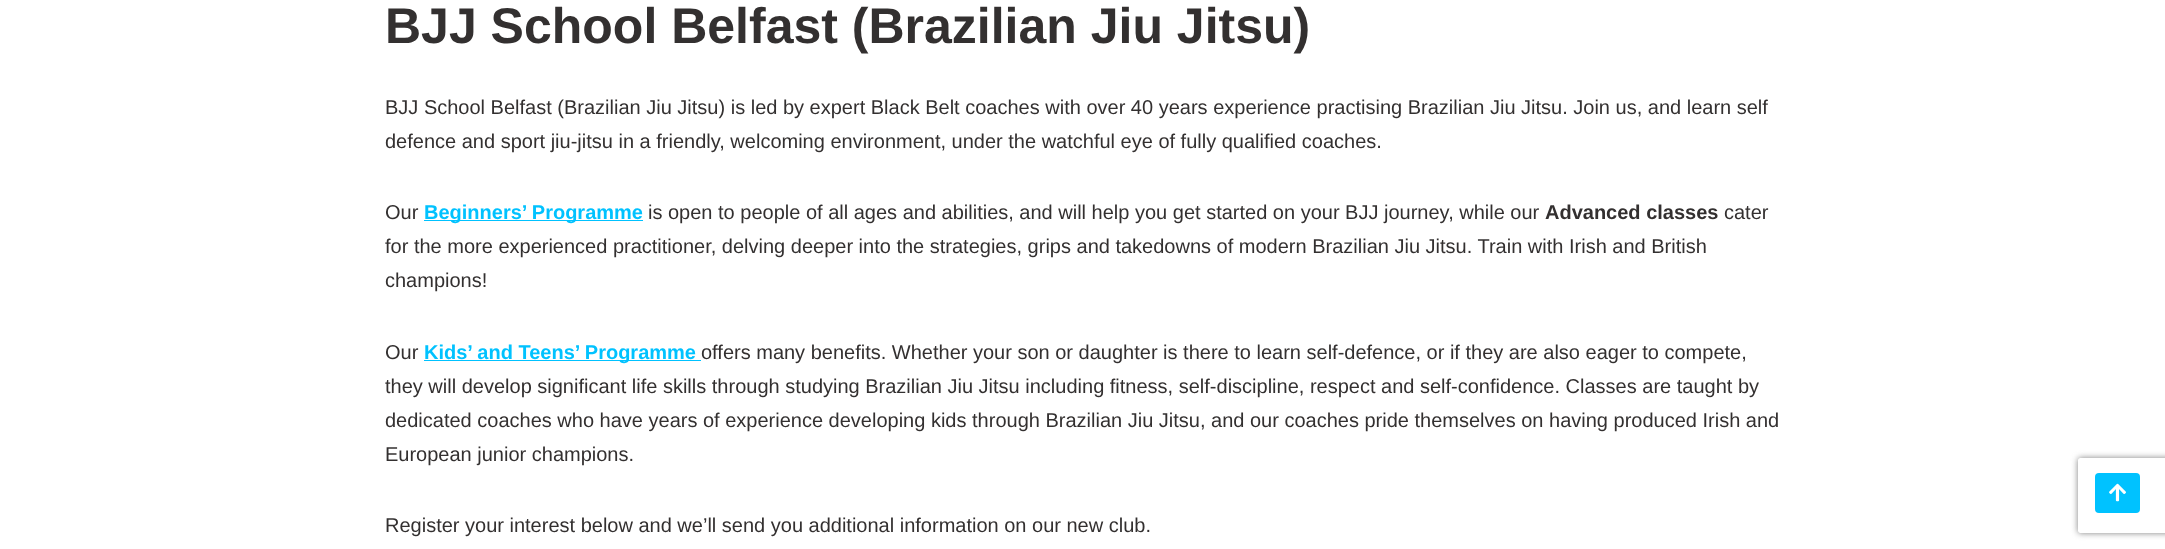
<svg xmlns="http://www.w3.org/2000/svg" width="2165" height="549">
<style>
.a{font:bold 50px Liberation Sans;fill:#333030}
.b{font:20px Liberation Sans;fill:#333030}
.c{font:bold 20px Liberation Sans;fill:#00c2ff}
.d{font:bold 20px Liberation Sans;fill:#333030}
</style>
<defs>
<clipPath id="clip1"><path d="M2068 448h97v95h-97zm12.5 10h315c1.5 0 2.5 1 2.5 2.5v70c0 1.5-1 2.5-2.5 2.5h-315c-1.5 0-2.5-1-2.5-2.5v-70c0-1.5 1-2.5 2.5-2.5z" clip-rule="evenodd"/></clipPath>
</defs>
<rect width="100%" height="100%" fill="#fff"/>
<path fill="#00c2ff" d="M424 220h219v1H424z"/>
<path fill="#00c2ff" d="M424 360h277v1H424z"/>
<g clip-path="url(#clip1)">
<rect fill="#808080" filter="blur(3px)" x="2078" y="458" width="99" height="75" rx="2.5"/>
</g>
<rect fill="#00c2ff" x="2095" y="473" width="45" height="40" rx="4"/>
<image href="1.png" x="2109" y="483" width="17" height="19"/>
<text class="a" x="385" y="43">BJJ School Belfast (Brazilian Jiu Jitsu)</text>
<text class="b" x="385" y="114">BJJ School Belfast (Brazilian Jiu Jitsu) is led by expert Black Belt coaches with over 40 years experience practising Brazilian Jiu Jitsu. Join us, and learn self</text>
<text class="b" x="385" y="148">defence and sport jiu-jitsu in a friendly, welcoming environment, under the watchful eye of fully qualified coaches.</text>
<text class="b" x="385" y="219">Our</text>
<text class="c" x="424" y="219">Beginners’ Programme</text>
<text class="b" x="648" y="219">is open to people of all ages and abilities, and will help you get started on your BJJ journey, while our</text>
<text class="d" x="1545" y="219">Advanced classes</text>
<text class="b" x="1724" y="219">cater</text>
<text class="b" x="385" y="253">for the more experienced practitioner, delving deeper into the strategies, grips and takedowns of modern Brazilian Jiu Jitsu. Train with Irish and British</text>
<text class="b" x="385" y="287">champions!</text>
<text class="b" x="385" y="359">Our</text>
<text class="c" x="424" y="359">Kids’ and Teens’ Programme</text>
<text class="b" x="701" y="359">offers many benefits. Whether your son or daughter is there to learn self-defence, or if they are also eager to compete,</text>
<text class="b" x="385" y="393">they will develop significant life skills through studying Brazilian Jiu Jitsu including fitness, self-discipline, respect and self-confidence. Classes are taught by</text>
<text class="b" x="385" y="427">dedicated coaches who have years of experience developing kids through Brazilian Jiu Jitsu, and our coaches pride themselves on having produced Irish and</text>
<text class="b" x="385" y="461">European junior champions.</text>
<text class="b" x="385" y="532">Register your interest below and we’ll send you additional information on our new club.</text>
</svg>
